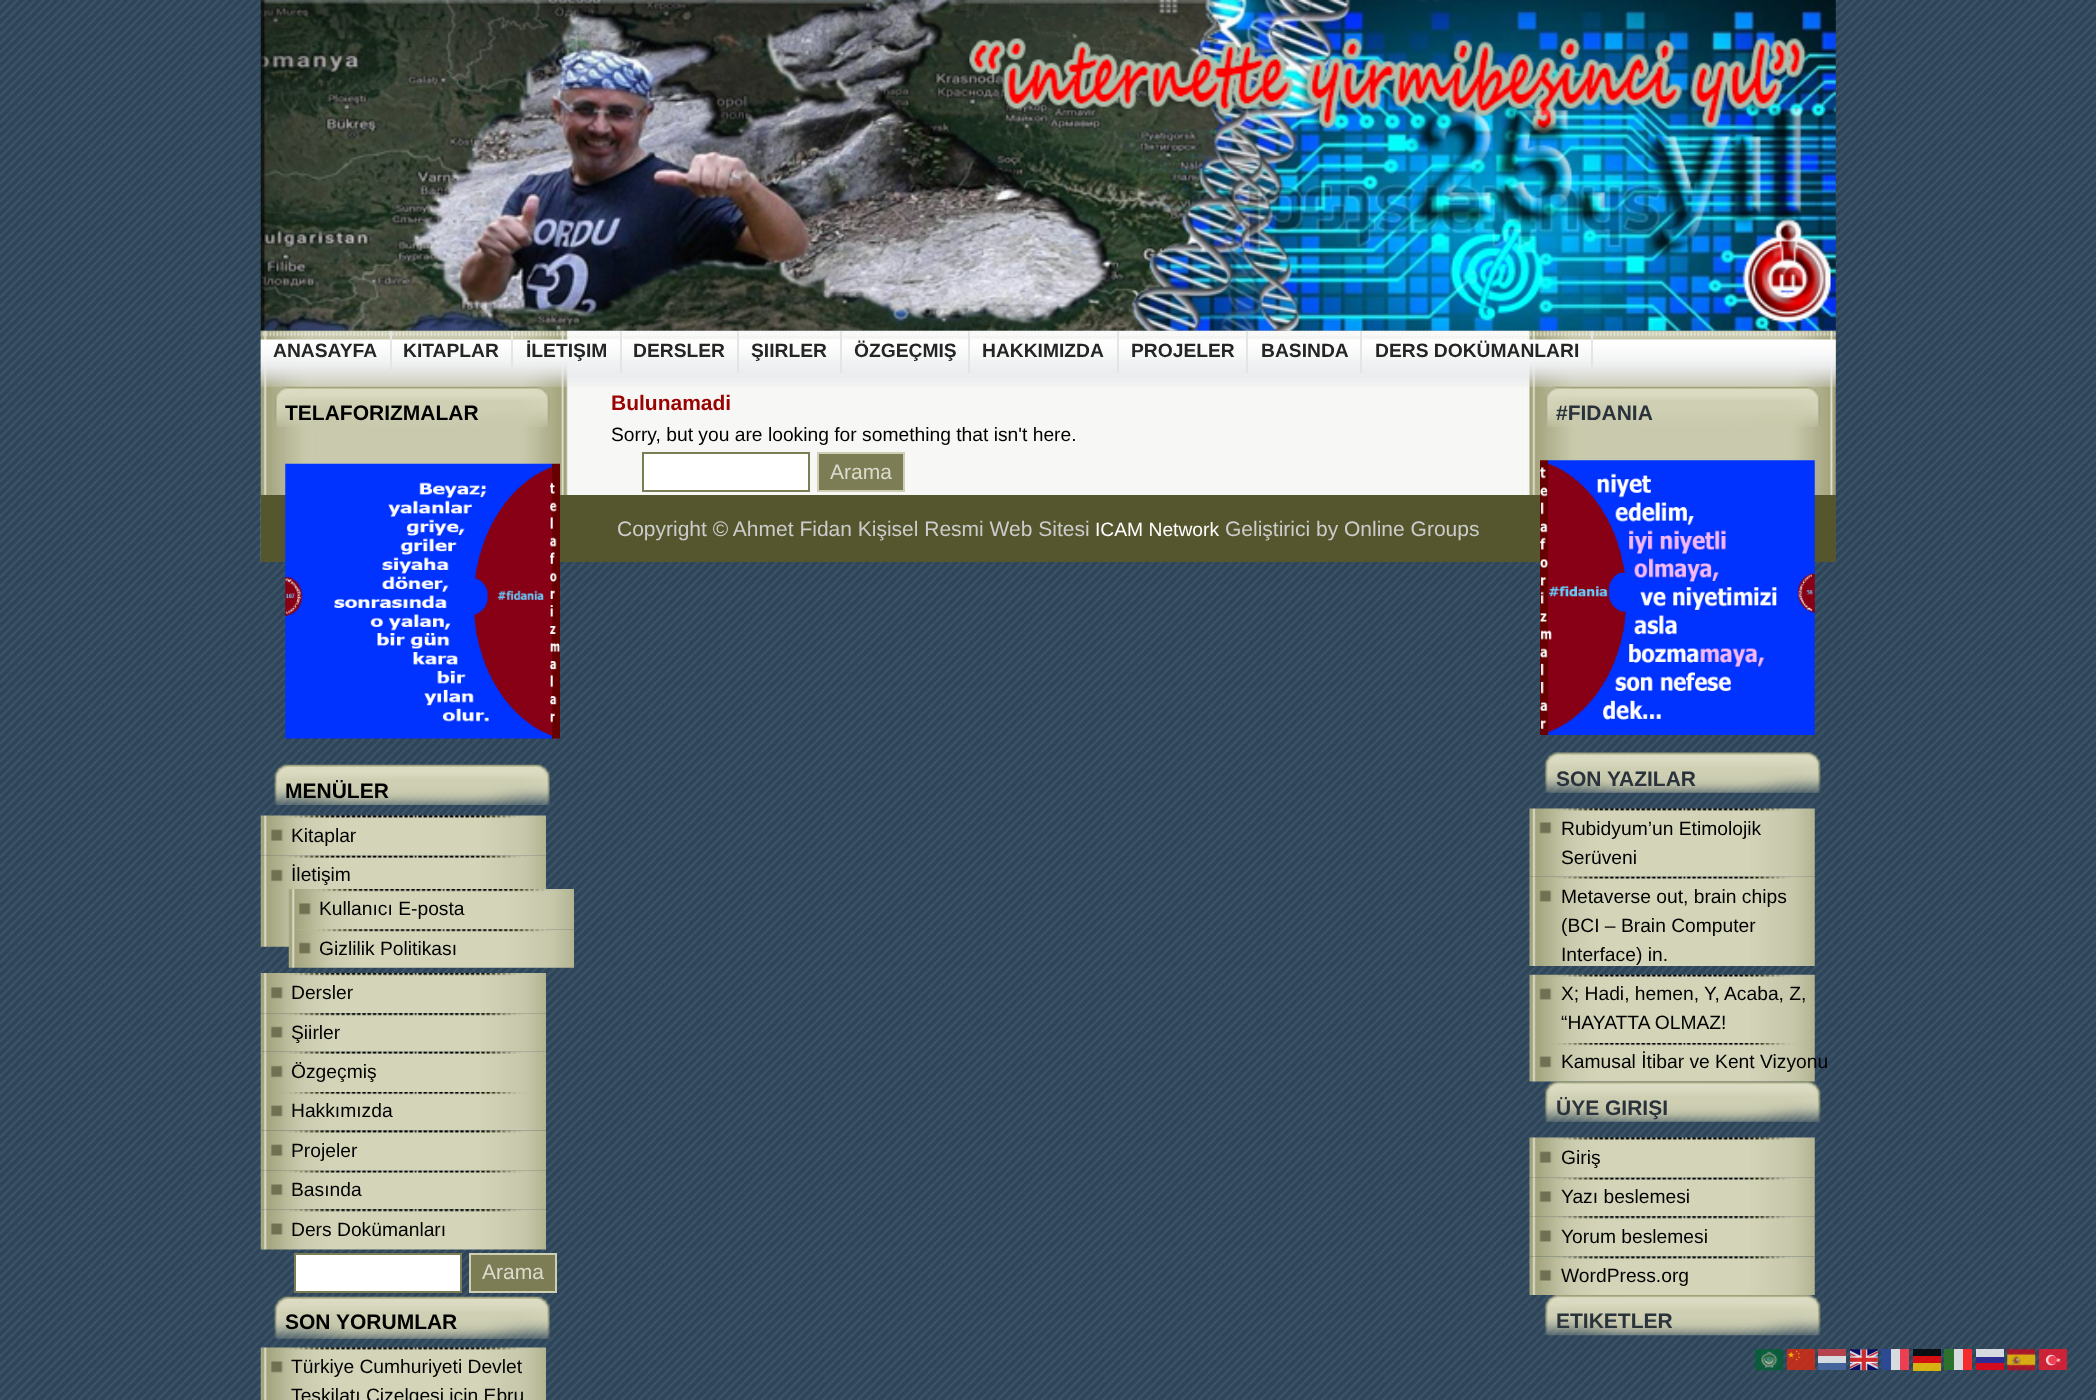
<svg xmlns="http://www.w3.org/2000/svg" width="2096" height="1400">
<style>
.a{font:bold 19.25px Liberation Sans;fill:#252525}
.b{font:bold 21px Liberation Sans;fill:#000}
.c{font:19.25px Liberation Sans;fill:#000}
.d{font:21px Liberation Sans;fill:#dbdbce}
.e{font:bold 21px Liberation Sans;fill:#9a0201}
.f{font:bold 21px Liberation Sans;fill:#2a323c}
.g{font:21px Liberation Sans;fill:#ccc}
.h{font:19.25px Liberation Sans;fill:#fff}
</style>
<rect width="100%" height="100%" fill="#fff"/>
<image href="1.png" x="0" y="0" width="2096" height="1400"/>
<image href="2.png" x="260" y="0" width="1576" height="331"/>
<image href="3.png" x="260" y="330" width="1576" height="232"/>
<image href="4.png" x="260" y="330" width="1576" height="57"/>
<path fill="#e4e5e5" d="M390 331h2v42H390z"/>
<path fill="#e4e5e5" d="M511 331h2v42H511z"/>
<path fill="#e4e5e5" d="M620 331h2v42H620z"/>
<path fill="#e4e5e5" d="M737 331h2v42H737z"/>
<path fill="#e4e5e5" d="M840 331h2v42H840z"/>
<path fill="#e4e5e5" d="M968 331h2v42H968z"/>
<path fill="#e4e5e5" d="M1117 331h2v42H1117z"/>
<path fill="#e4e5e5" d="M1246 331h2v42H1246z"/>
<path fill="#e4e5e5" d="M1360 331h2v42H1360z"/>
<path fill="#e4e5e5" d="M1591 331h2v42H1591z"/>
<image href="5.png" x="274" y="386" width="276" height="41"/>
<path fill="#55562e" d="M261 495h1575v67H261z"/>
<image href="6.png" x="285" y="463" width="275" height="276"/>
<image href="7.png" x="274" y="764" width="276" height="41"/>
<image href="8.png" x="260" y="815" width="286" height="41"/>
<image href="9.png" x="260" y="855" width="286" height="92"/>
<image href="10.png" x="288" y="889" width="286" height="41"/>
<image href="11.png" x="288" y="929" width="286" height="39"/>
<image href="12.png" x="260" y="973" width="286" height="41"/>
<image href="13.png" x="260" y="1013" width="286" height="39"/>
<image href="14.png" x="260" y="1051" width="286" height="41"/>
<image href="15.png" x="260" y="1092" width="286" height="39"/>
<image href="16.png" x="260" y="1130" width="286" height="41"/>
<image href="17.png" x="260" y="1170" width="286" height="40"/>
<image href="18.png" x="260" y="1209" width="286" height="41"/>
<path fill="#fff" stroke="#7c7d55" stroke-width="2" d="M295 1254h166v38H295z"/>
<path fill="#7c7d55" stroke="#cecfb3" stroke-width="2" d="M470 1254h86v38H470z"/>
<image href="19.png" x="274" y="1296" width="276" height="43"/>
<image href="20.png" x="260" y="1347" width="286" height="53"/>
<path fill="#fff" stroke="#7c7d55" stroke-width="2" d="M643 453h166v38H643z"/>
<path fill="#7c7d55" stroke="#cecfb3" stroke-width="2" d="M818 453h86v38H818z"/>
<image href="21.png" x="1545" y="386" width="276" height="41"/>
<image href="22.png" x="1540" y="460" width="275" height="275"/>
<image href="23.png" x="1544" y="752" width="277" height="41"/>
<image href="24.png" x="1529" y="808" width="286" height="69"/>
<image href="25.png" x="1529" y="876" width="286" height="90"/>
<image href="26.png" x="1529" y="974" width="286" height="69"/>
<image href="27.png" x="1529" y="1043" width="286" height="39"/>
<image href="28.png" x="1544" y="1081" width="277" height="41"/>
<image href="29.png" x="1529" y="1137" width="286" height="41"/>
<image href="30.png" x="1529" y="1177" width="286" height="40"/>
<image href="31.png" x="1529" y="1216" width="286" height="41"/>
<image href="32.png" x="1529" y="1256" width="286" height="39"/>
<image href="33.png" x="1544" y="1295" width="277" height="41"/>
<image href="34.png" x="1755" y="1348" width="29" height="23"/>
<image href="35.png" x="1787" y="1349" width="28" height="21"/>
<path fill="#ffffffcc" d="M1818 1349h28v21H1818z"/>
<image href="36.png" x="2007" y="1348" width="29" height="23"/>
<path fill="#ae1c28cc" d="M1818 1349h28v7H1818z"/>
<image href="37.png" x="1850" y="1349" width="28" height="22"/>
<path fill="#ffffffcc" d="M1881 1349h28v21H1881z"/>
<path fill="#00267fcc" d="M1881 1349h10v21H1881z"/>
<path fill="#f31830cc" d="M1900 1349h9v21H1900z"/>
<path fill="#000000cc" d="M1913 1349h28v7H1913z"/>
<path fill="#ffffffcc" d="M1944 1349h28v21H1944z"/>
<path fill="#ff0000cc" d="M1913 1356h28v7H1913z"/>
<path fill="#005700cc" d="M1944 1349h10v21H1944z"/>
<path fill="#fc0000cc" d="M1963 1349h9v21H1963z"/>
<path fill="#ffffffcc" d="M1976 1349h28v14H1976z"/>
<image href="38.png" x="2039" y="1349" width="28" height="21"/>
<path fill="#01017ecc" d="M1976 1357h28v6H1976z"/>
<path fill="#21468bcc" d="M1818 1363h28v7H1818z"/>
<path fill="#ffcc00cc" d="M1913 1363h28v8H1913z"/>
<path fill="#d40a1e" d="M1976 1363h28v7H1976z"/>
<text class="a" x="273" y="357">ANASAYFA</text>
<text class="a" x="403" y="357">KITAPLAR</text>
<text class="a" x="526" y="357">İLETIŞIM</text>
<text class="a" x="633" y="357">DERSLER</text>
<text class="a" x="751" y="357">ŞIIRLER</text>
<text class="a" x="854" y="357">ÖZGEÇMIŞ</text>
<text class="a" x="982" y="357">HAKKIMIZDA</text>
<text class="a" x="1131" y="357">PROJELER</text>
<text class="a" x="1261" y="357">BASINDA</text>
<text class="a" x="1375" y="357">DERS DOKÜMANLARI</text>
<text class="b" x="285" y="420">TELAFORIZMALAR</text>
<text class="b" x="285" y="798">MENÜLER</text>
<text class="c" x="291" y="842">Kitaplar</text>
<text class="c" x="291" y="881">İletişim</text>
<text class="c" x="319" y="915">Kullanıcı E-posta</text>
<text class="c" x="319" y="955">Gizlilik Politikası</text>
<text class="c" x="291" y="999">Dersler</text>
<text class="c" x="291" y="1039">Şiirler</text>
<text class="c" x="291" y="1078">Özgeçmiş</text>
<text class="c" x="291" y="1117">Hakkımızda</text>
<text class="c" x="291" y="1157">Projeler</text>
<text class="c" x="291" y="1196">Basında</text>
<text class="c" x="291" y="1236">Ders Dokümanları</text>
<text class="d" x="482" y="1279">Arama</text>
<text class="b" x="285" y="1329">SON YORUMLAR</text>
<text class="c" x="291" y="1373">Türkiye Cumhuriyeti Devlet</text>
<text class="c" x="291" y="1402">Teşkilatı Çizelgesi için Ebru</text>
<text class="e" x="611" y="410">Bulunamadi</text>
<text class="c" x="611" y="441">Sorry, but you are looking for something that isn't here.</text>
<text class="d" x="830" y="479">Arama</text>
<text class="f" x="1556" y="420">#FIDANIA</text>
<text class="f" x="1556" y="786">SON YAZILAR</text>
<text class="c" x="1561" y="835">Rubidyum’un Etimolojik</text>
<text class="c" x="1561" y="864">Serüveni</text>
<text class="c" x="1561" y="903">Metaverse out, brain chips</text>
<text class="c" x="1561" y="932">(BCI – Brain Computer</text>
<text class="c" x="1561" y="961">Interface) in.</text>
<text class="c" x="1561" y="1000">X; Hadi, hemen, Y, Acaba, Z,</text>
<text class="c" x="1561" y="1029">“HAYATTA OLMAZ!</text>
<text class="c" x="1561" y="1068">Kamusal İtibar ve Kent Vizyonu</text>
<text class="f" x="1556" y="1115">ÜYE GIRIŞI</text>
<text class="c" x="1561" y="1164">Giriş</text>
<text class="c" x="1561" y="1203">Yazı beslemesi</text>
<text class="c" x="1561" y="1243">Yorum beslemesi</text>
<text class="c" x="1561" y="1282">WordPress.org</text>
<text class="f" x="1556" y="1328">ETIKETLER</text>
<text class="g" x="617" y="536">Copyright © Ahmet Fidan Kişisel Resmi Web Sitesi</text>
<text class="h" x="1095" y="536">ICAM Network</text>
<text class="g" x="1225" y="536">Geliştirici by Online Groups</text>
</svg>
